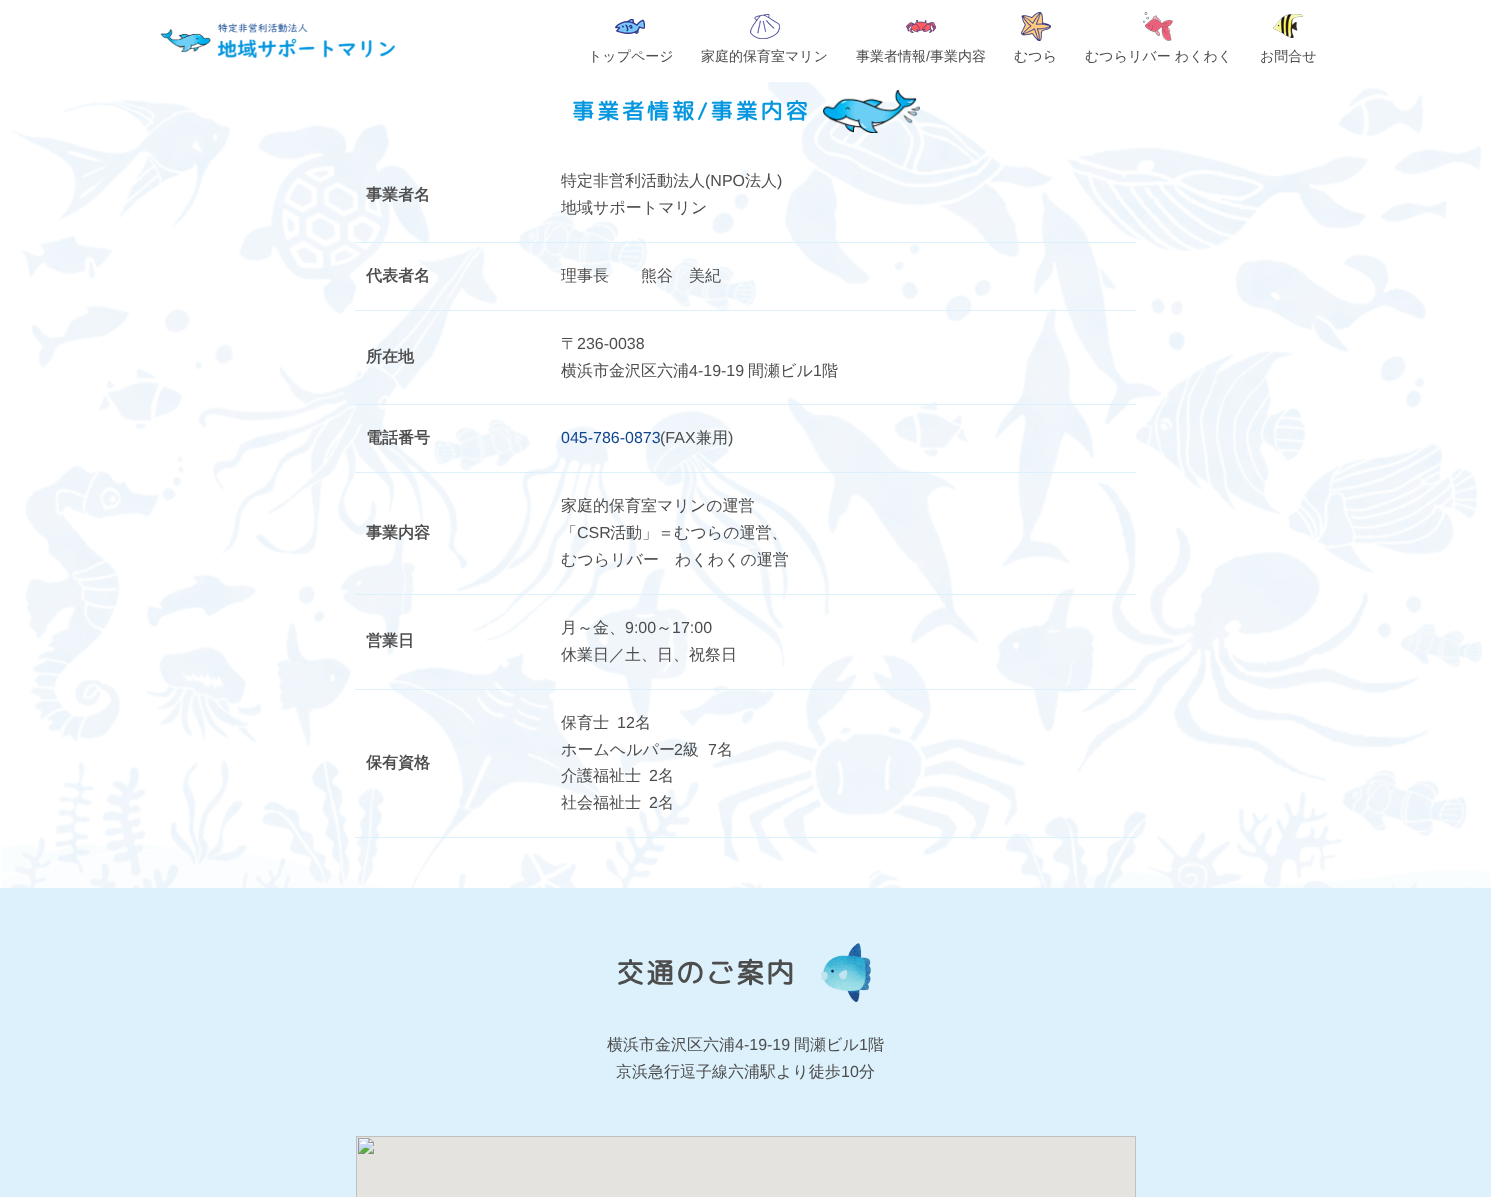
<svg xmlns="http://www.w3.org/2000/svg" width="1491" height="1197">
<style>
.a{font:500 14px WenQuanYi Zen Hei;fill:#4d4d4d}
.b{font:14px Liberation Sans;fill:#4d4d4d}
.c{font:bold 22px 'Rounded Mplus 1c';letter-spacing:3px;fill:#0797de}
.d{font:bold 16px WenQuanYi Zen Hei;fill:#4d4d4d}
.e{font:500 16px WenQuanYi Zen Hei;fill:#4d4d4d}
.f{font:16px Liberation Sans;fill:#4d4d4d}
.g{font:16px Liberation Sans;fill:#0f458f}
.h{font:bold 28px 'Rounded Mplus 1c';letter-spacing:2px;fill:#4d4d4d}
</style>
<rect width="100%" height="100%" fill="#fff"/>
<image href="1.png" x="160" y="23" width="236" height="36"/>
<image href="2.png" x="615" y="19" width="30" height="15"/>
<image href="3.png" x="750" y="14" width="30" height="25"/>
<image href="4.png" x="906" y="20" width="30" height="13"/>
<image href="5.png" x="1021" y="12" width="30" height="29"/>
<image href="6.png" x="1143" y="12" width="30" height="29"/>
<image href="7.png" x="1273" y="14" width="30" height="24"/>
<image href="8.png" x="0" y="82" width="1491" height="806"/>
<image href="9.png" x="823" y="90" width="97" height="43"/>
<path fill="#dcf1fb" d="M355 242h781v1H355z"/>
<path fill="#dcf1fb" d="M355 310h781v1H355z"/>
<path fill="#dcf1fb" d="M355 404h781v1H355z"/>
<path fill="#dcf1fb" d="M355 472h781v1H355z"/>
<path fill="#dcf1fb" d="M355 594h781v1H355z"/>
<path fill="#dcf1fb" d="M355 689h781v1H355z"/>
<path fill="#dcf1fb" d="M355 837h781v1H355z"/>
<path fill="#dcf1fb" d="M0 888h1491v309H0z"/>
<image href="10.png" x="821" y="943" width="50" height="59"/>
<image href="11.png" x="356" y="1136" width="780" height="61"/>
<text class="a" x="588" y="61">トップページ</text>
<text class="a" x="701" y="61">家庭的保育室マリン</text>
<text class="a" x="856" y="61">事業者情報</text>
<text class="b" x="926" y="61">/</text>
<text class="a" x="930" y="61">事業内容</text>
<text class="a" x="1014" y="61">むつら</text>
<text class="a" x="1085" y="61">むつらリバー わくわく</text>
<text class="a" x="1260" y="61">お問合せ</text>
<text class="c" x="572" y="119">事業者情報/事業内容</text>
<text class="d" x="366" y="200">事業者名</text>
<text class="e" x="561" y="186">特定非営利活動法人</text>
<text class="f" x="705" y="186">(NPO</text>
<text class="e" x="745" y="186">法人</text>
<text class="f" x="777" y="186">)</text>
<text class="e" x="561" y="213">地域サポートマリン</text>
<text class="d" x="366" y="281">代表者名</text>
<text class="e" x="561" y="281">理事長　　熊谷　美紀</text>
<text class="d" x="366" y="362">所在地</text>
<text class="e" x="561" y="349">〒</text>
<text class="f" x="577" y="349">236-0038</text>
<text class="e" x="561" y="376">横浜市金沢区六浦</text>
<text class="f" x="689" y="376">4-19-19</text>
<text class="e" x="748" y="376">間瀬ビル</text>
<text class="f" x="813" y="376">1</text>
<text class="e" x="822" y="376">階</text>
<text class="d" x="366" y="443">電話番号</text>
<text class="g" x="561" y="443">045-786-0873</text>
<text class="f" x="660" y="443">(FAX</text>
<text class="e" x="696" y="443">兼用</text>
<text class="f" x="728" y="443">)</text>
<text class="d" x="366" y="538">事業内容</text>
<text class="e" x="561" y="511">家庭的保育室マリンの運営</text>
<text class="e" x="561" y="538">「</text>
<text class="f" x="577" y="538">CSR</text>
<text class="e" x="610" y="538">活動」＝むつらの運営、</text>
<text class="e" x="561" y="565">むつらリバー　わくわくの運営</text>
<text class="d" x="366" y="646">営業日</text>
<text class="e" x="561" y="633">月～金、</text>
<text class="f" x="625" y="633">9:00</text>
<text class="e" x="656" y="633">～</text>
<text class="f" x="672" y="633">17:00</text>
<text class="e" x="561" y="660">休業日／土、日、祝祭日</text>
<text class="d" x="366" y="768">保有資格</text>
<text class="e" x="561" y="728">保育士</text>
<text class="f" x="617" y="728">12</text>
<text class="e" x="635" y="728">名</text>
<text class="e" x="561" y="755">ホームヘルパー</text>
<text class="f" x="674" y="755">2</text>
<text class="e" x="683" y="755">級</text>
<text class="f" x="708" y="755">7</text>
<text class="e" x="717" y="755">名</text>
<text class="e" x="561" y="781">介護福祉士</text>
<text class="f" x="649" y="781">2</text>
<text class="e" x="658" y="781">名</text>
<text class="e" x="561" y="808">社会福祉士</text>
<text class="f" x="649" y="808">2</text>
<text class="e" x="658" y="808">名</text>
<text class="h" x="616" y="983">交通のご案内</text>
<text class="e" x="607" y="1050">横浜市金沢区六浦</text>
<text class="f" x="735" y="1050">4-19-19</text>
<text class="e" x="794" y="1050">間瀬ビル</text>
<text class="f" x="859" y="1050">1</text>
<text class="e" x="868" y="1050">階</text>
<text class="e" x="616" y="1077">京浜急行逗子線六浦駅より徒歩</text>
<text class="f" x="841" y="1077">10</text>
<text class="e" x="859" y="1077">分</text>
</svg>
